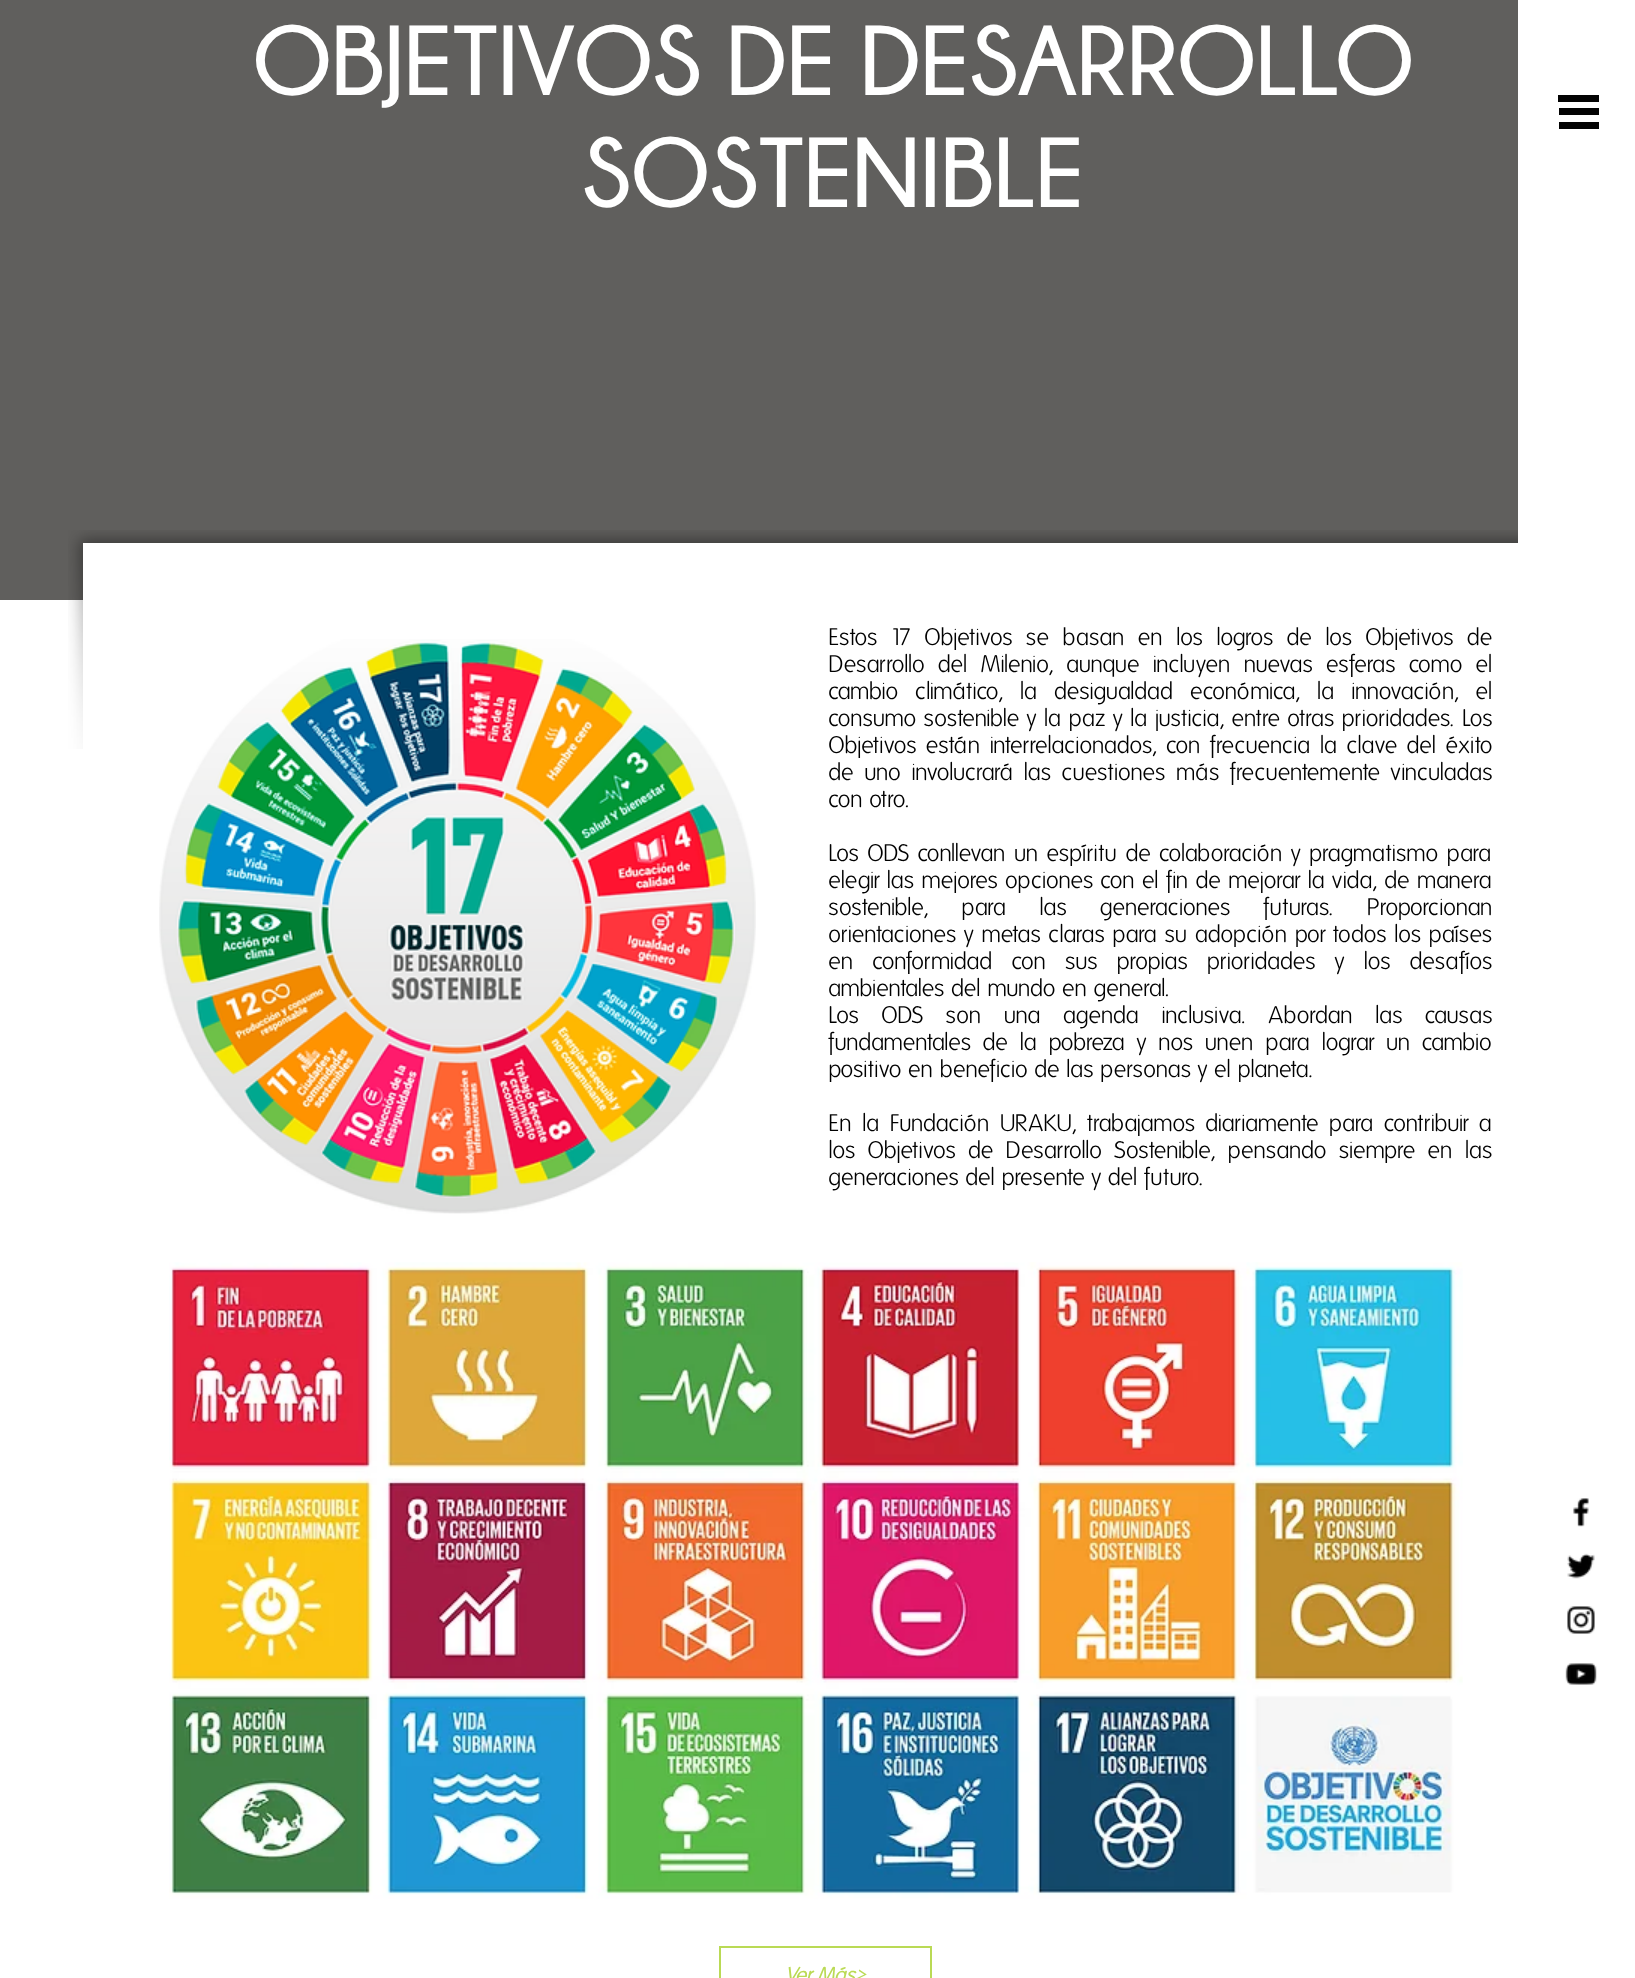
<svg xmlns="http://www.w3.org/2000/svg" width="1635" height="1978">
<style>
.a{font:bold 99px 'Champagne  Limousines';fill:#fff}
.b{font:300 24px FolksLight;fill:#000}
.c{font:italic 21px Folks;fill:#bada55}
</style>
<rect width="100%" height="100%" fill="#fff"/>
<path fill="#605f5d" d="M0 0h1518v600H0z"/>
<image href="1.png" x="68" y="530" width="67" height="219"/>
<image href="2.png" x="135" y="530" width="1365" height="13"/>
<image href="3.png" x="1500" y="530" width="18" height="13"/>
<path fill="#fff" d="M83 543h1435v206H83z"/>
<image href="4.png" x="159" y="639" width="597" height="575"/>
<image href="5.png" x="169" y="1262" width="1294" height="637"/>
<path fill="none" stroke="#bada55" stroke-width="2" d="M720 1947h211v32H720z"/>
<path fill="#030303" d="M1558 102v-7h41v7h-40z"/>
<path fill="#030303" d="M1559 108h40v7H1559z"/>
<path fill="#030303" d="M1559 122h40v7H1559z"/>
<image href="6.png" x="1573" y="1498" width="16" height="29"/>
<image href="7.png" x="1567" y="1553" width="28" height="26"/>
<image href="8.png" x="1567" y="1606" width="28" height="28"/>
<image href="9.png" x="1565" y="1663" width="32" height="22"/>
<text class="a" x="253" y="95">OBJETIVOS DE DESARROLLO</text>
<text class="a" x="582" y="207">SOSTENIBLE</text>
<text class="b" x="828" y="645" word-spacing="6.75">Estos 17 Objetivos se basan en los logros de los Objetivos de</text>
<text class="b" x="828" y="672" word-spacing="6.5">Desarrollo del Milenio, aunque incluyen nuevas esferas como el</text>
<text class="b" x="828" y="699" word-spacing="10.25">cambio climático, la desigualdad económica, la innovación, el</text>
<text class="b" x="828" y="726" word-spacing="0.75">consumo sostenible y la paz y la justicia, entre otras prioridades. Los</text>
<text class="b" x="828" y="753" word-spacing="2.75">Objetivos están interrelacionados, con frecuencia la clave del éxito</text>
<text class="b" x="828" y="780" word-spacing="4">de uno involucrará las cuestiones más frecuentemente vinculadas</text>
<text class="b" x="828" y="807">con otro.</text>
<text class="b" x="828" y="861" word-spacing="1.75">Los ODS conllevan un espíritu de colaboración y pragmatismo para</text>
<text class="b" x="828" y="888" word-spacing="0.6">elegir las mejores opciones con el fin de mejorar la vida, de manera</text>
<text class="b" x="828" y="915" word-spacing="26.5">sostenible, para las generaciones futuras. Proporcionan</text>
<text class="b" x="828" y="942" word-spacing="1">orientaciones y metas claras para su adopción por todos los países</text>
<text class="b" x="828" y="969" word-spacing="12.5">en conformidad con sus propias prioridades y los desafíos</text>
<text class="b" x="828" y="996">ambientales del mundo en general.</text>
<text class="b" x="828" y="1023" word-spacing="15.75">Los ODS son una agenda inclusiva. Abordan las causas</text>
<text class="b" x="828" y="1050" word-spacing="5">fundamentales de la pobreza y nos unen para lograr un cambio</text>
<text class="b" x="828" y="1077">positivo en beneficio de las personas y el planeta.</text>
<text class="b" x="828" y="1131" word-spacing="3.75">En la Fundación URAKU, trabajamos diariamente para contribuir a</text>
<text class="b" x="828" y="1158" word-spacing="5.75">los Objetivos de Desarrollo Sostenible, pensando siempre en las</text>
<text class="b" x="828" y="1185">generaciones del presente y del futuro.</text>
<text class="c" x="785" y="1982">Ver Más&gt;</text>
</svg>
